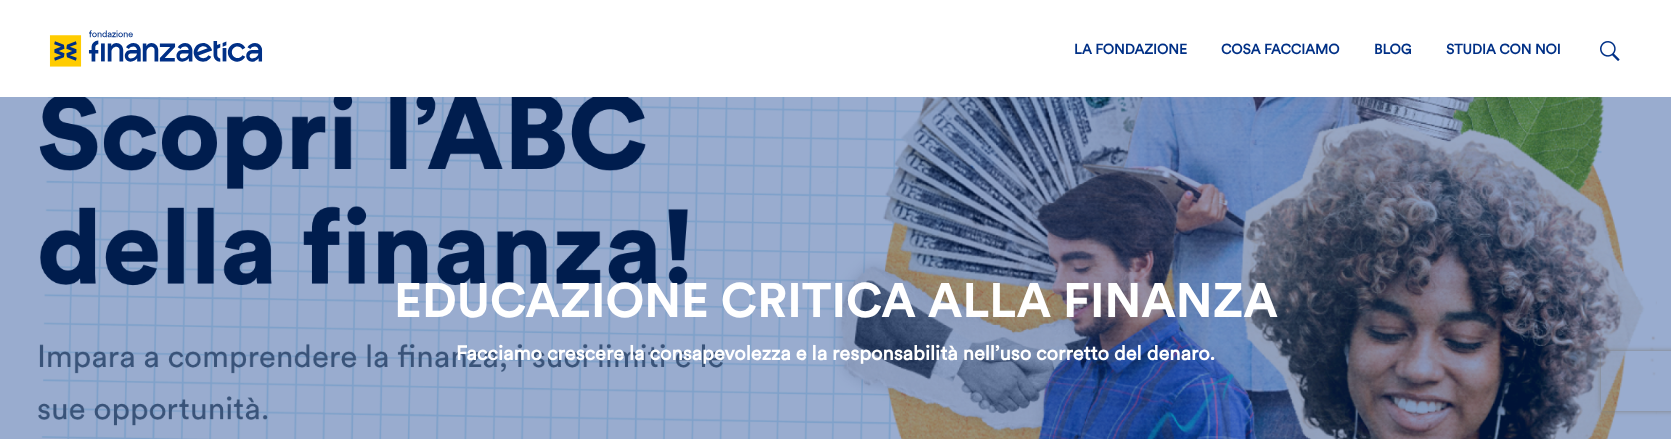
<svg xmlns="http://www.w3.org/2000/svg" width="1671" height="439">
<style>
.a{font:bold 14px 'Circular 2';fill:#003086}
.b{font:bold 48px Circular;fill:#fff}
.c{font:bold 20px 'Circular 2';fill:#fff}
</style>
<defs>
<clipPath id="clip1"><path d="M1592 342h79v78h-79zm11 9h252c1 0 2 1 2 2v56c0 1-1 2-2 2h-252c-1 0-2-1-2-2v-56c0-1 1-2 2-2z" clip-rule="evenodd"/></clipPath>
</defs>
<rect width="100%" height="100%" fill="#fff"/>
<path fill="#99accf" d="M0 97h1671v342H0z"/>
<image href="1.png" x="49" y="30" width="214" height="37"/>
<image href="2.png" x="1600" y="41" width="20" height="20"/>
<image href="3.png" x="38" y="97" width="1619" height="342"/>
<g clip-path="url(#clip1)">
<rect fill="#808080" filter="blur(2.5px)" x="1601" y="351" width="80" height="60" rx="2"/>
</g>
<text class="a" x="1074" y="54">LA FONDAZIONE</text>
<text class="a" x="1221" y="54">COSA FACCIAMO</text>
<text class="a" x="1374" y="54">BLOG</text>
<text class="a" x="1446" y="54">STUDIA CON NOI</text>
<text class="b" x="394" y="317">EDUCAZIONE CRITICA ALLA FINANZA</text>
<text class="c" x="456" y="360">Facciamo crescere la consapevolezza e la responsabilità nell’uso corretto del denaro.</text>
</svg>
